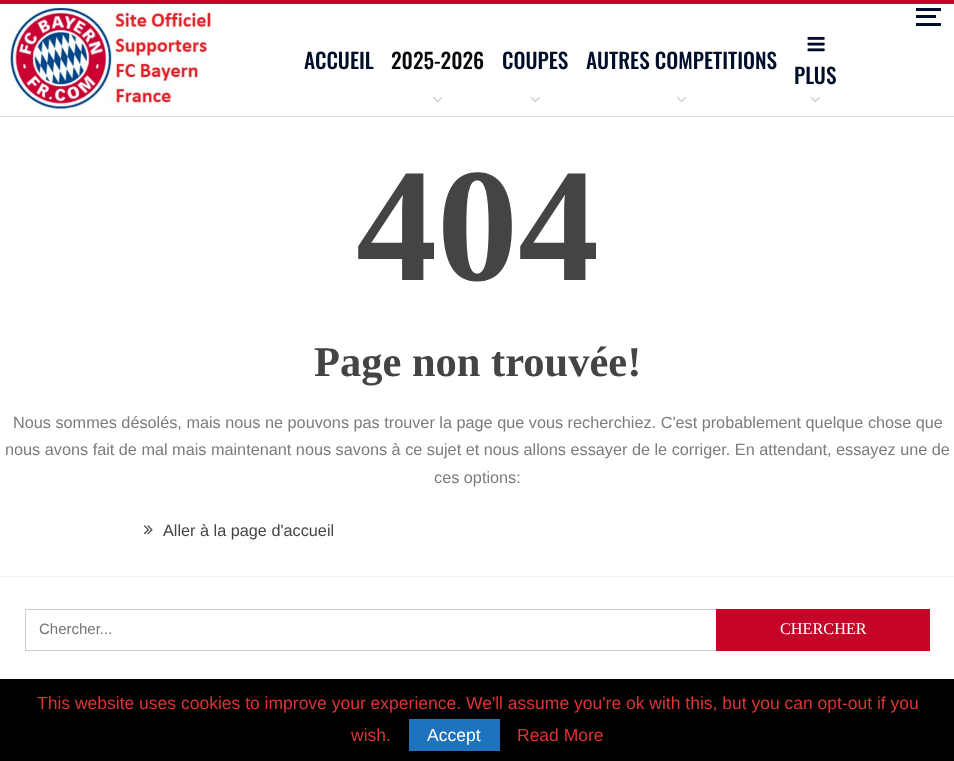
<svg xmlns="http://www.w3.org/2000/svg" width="954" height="761">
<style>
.a{font:500 21.25px Oswald;fill:#000e29}
.b{font:500 21.25px Oswald;fill:#0a0a0a}
.c{font:bold 162px Liberation Serif;fill:#444}
.d{font:bold 42.5px Liberation Serif;fill:#444}
.e{font:16.25px Liberation Sans;fill:#7b7b7b}
.f{font:16.25px Liberation Sans;fill:#444}
.g{font:15px Liberation Sans;fill:#757575}
.h{font:16.25px Liberation Serif;fill:#fff}
.i{font:17.5px Liberation Sans;fill:#d33}
.j{font:17.5px Liberation Sans;fill:#fff}
</style>
<rect width="100%" height="100%" fill="#fff"/>
<path fill="#c60428" d="M0 0h954v4H0z"/>
<path fill="#dedede" d="M0 116h954v1H0z"/>
<image href="1.png" x="10" y="5" width="205" height="105"/>
<path fill="#000e29" d="M916 15h20v3H916z"/>
<path fill="#000e29" d="M916 8h25v3H916z"/>
<path fill="#000e29" d="M916 23h25v3H916z"/>
<image href="2.png" x="433" y="97" width="9" height="6"/>
<image href="3.png" x="530" y="97" width="10" height="6"/>
<image href="4.png" x="677" y="97" width="9" height="6"/>
<image href="5.png" x="807" y="36" width="18" height="16"/>
<image href="3.png" x="810" y="97" width="10" height="6"/>
<image href="6.png" x="143" y="525" width="10" height="10"/>
<path fill="#f4f4f4" d="M0 576h954v1H0z"/>
<path fill="none" stroke="#cbcbcb" d="M25.5 609.5h904v41H25.5z"/>
<path fill="#c60428" d="M716 609h214v42H716z"/>
<path fill="#000" d="M0 679h954v82H0z"/>
<path fill="#1e73be" d="M409 719h91v32H409z"/>
<text class="a" x="304" y="69">ACCUEIL</text>
<text class="b" x="391" y="69">2025-2026</text>
<text class="a" x="502" y="69">COUPES</text>
<text class="a" x="586" y="69">AUTRES COMPETITIONS</text>
<text class="a" x="794" y="84">PLUS</text>
<text class="c" x="356" y="280">404</text>
<text class="d" x="314" y="376">Page non trouvée!</text>
<text class="e" x="13" y="428">Nous sommes désolés, mais nous ne pouvons pas trouver la page que vous recherchiez. C'est probablement quelque chose que</text>
<text class="e" x="5" y="455">nous avons fait de mal mais maintenant nous savons à ce sujet et nous allons essayer de le corriger. En attendant, essayez une de</text>
<text class="e" x="434" y="483">ces options:</text>
<text class="f" x="163" y="536">Aller à la page d'accueil</text>
<text class="g" x="39" y="634">Chercher...</text>
<text class="h" x="780" y="634">CHERCHER</text>
<text class="i" x="37" y="709">This website uses cookies to improve your experience. We'll assume you're ok with this, but you can opt-out if you</text>
<text class="i" x="351" y="741">wish.</text>
<text class="j" x="427" y="741">Accept</text>
<text class="i" x="517" y="741">Read More</text>
</svg>
